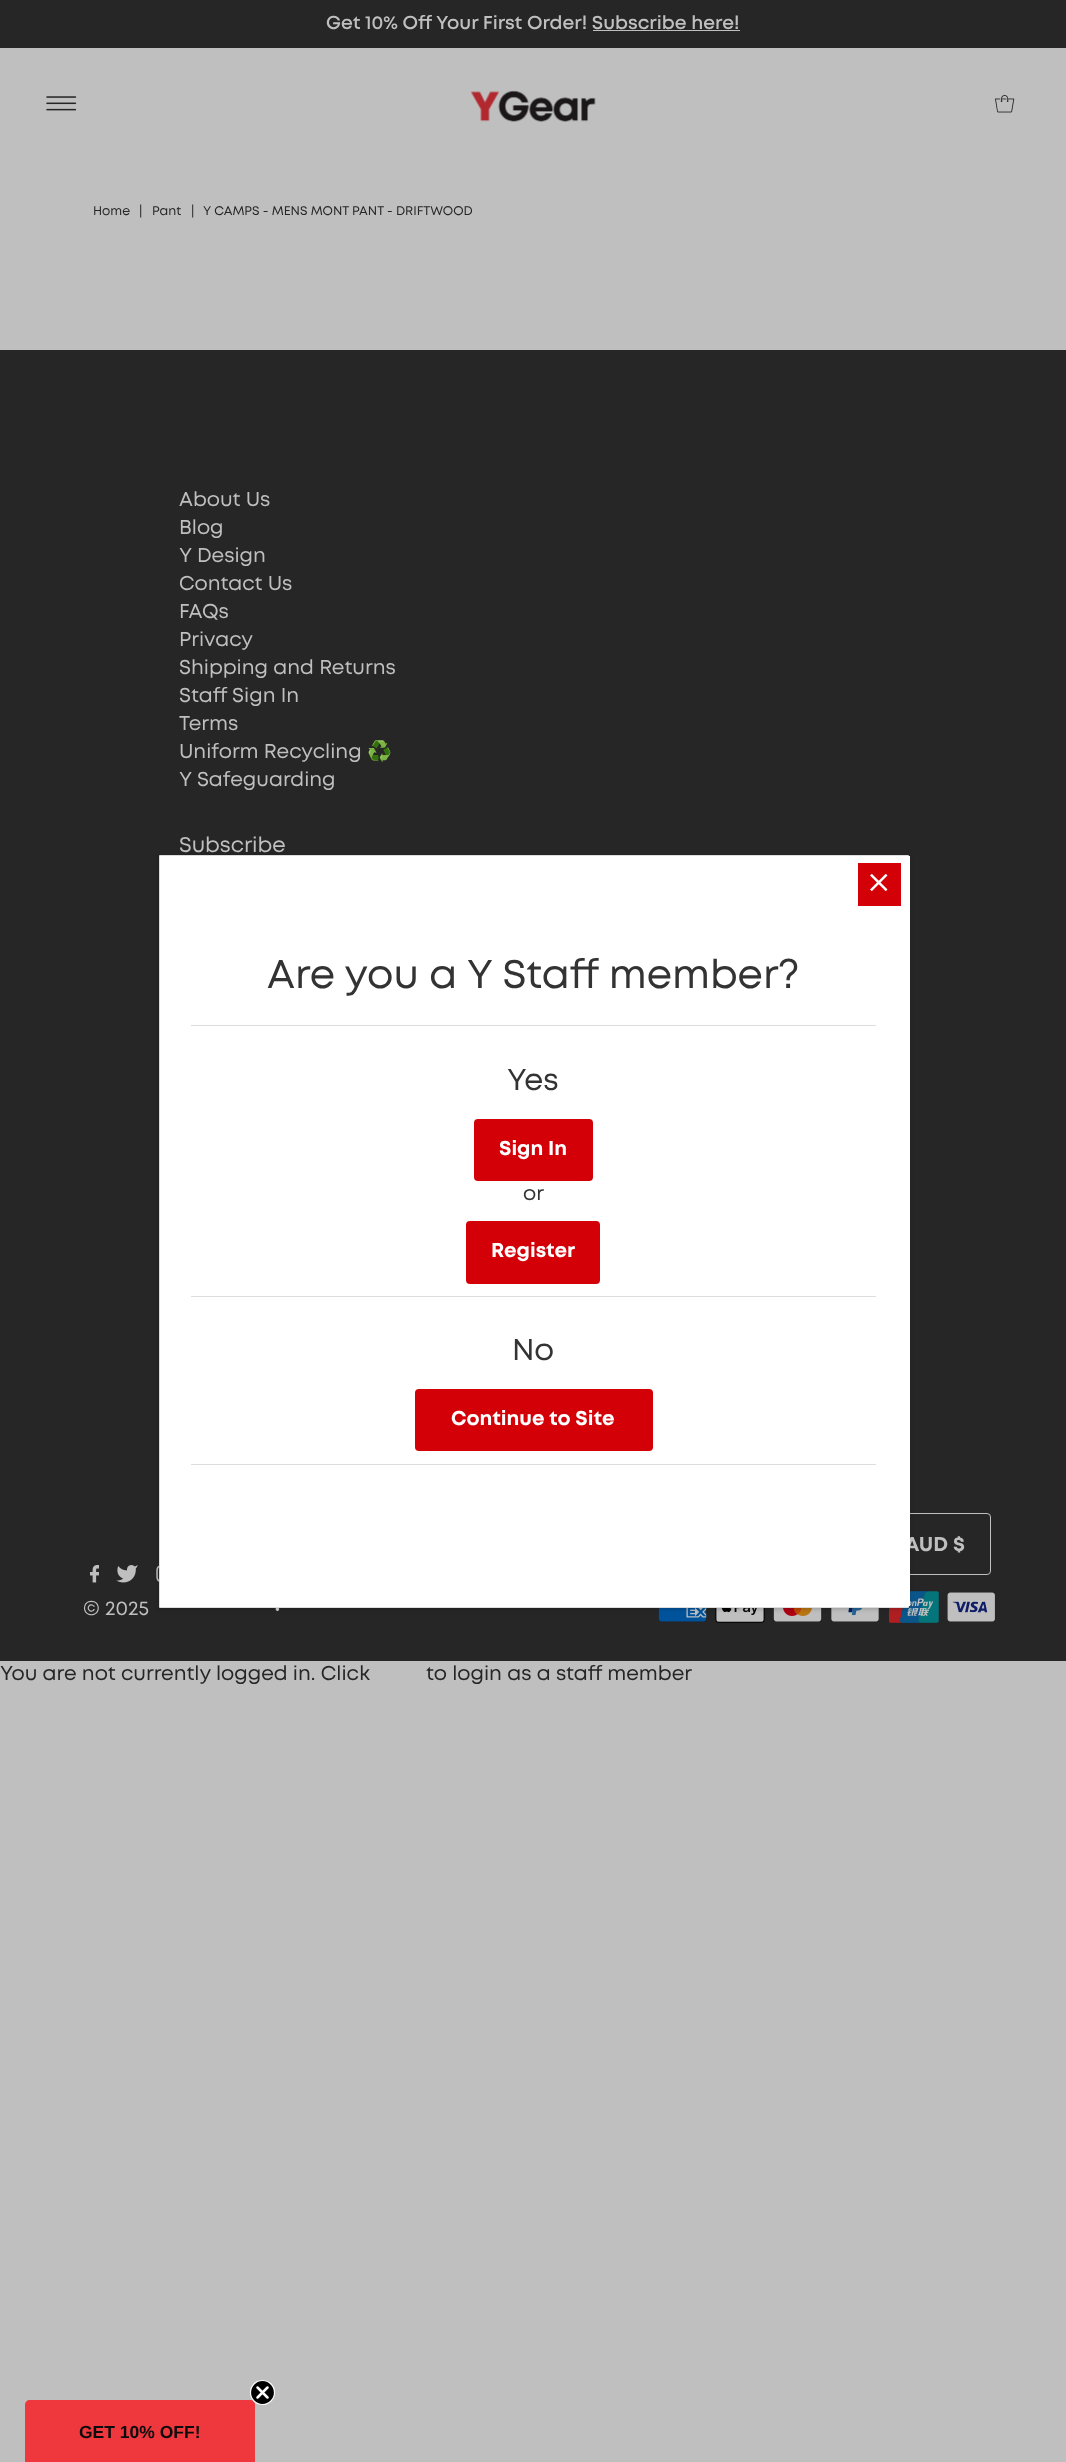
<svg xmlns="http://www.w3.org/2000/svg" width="1066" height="2462">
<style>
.a{font:600 18.75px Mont;fill:#bfbfbf}
.b{font:12.5px Mont;fill:#262626}
.c{font:20px Mont;fill:#bfbfbf}
.d{font:20px Noto Color Emoji;fill:#bfbfbf}
.e{font:21.25px Mont;fill:#bfbfbf}
.f{font:bold 20px Mont;fill:#bfbfbf}
.g{font:40px Mont;fill:#333}
.h{font:30px Mont;fill:#333}
.i{font:bold 20px Mont;fill:#fff}
.j{font:20px Mont;fill:#333}
.k{font:20px Mont;fill:#262626}
.l{font:bold 17.5px Liberation Sans;fill:#0d0c0c}
</style>
<rect width="100%" height="100%" fill="#bfbfbf"/>
<path fill="#262626" d="M0 0h1066v48H0z"/>
<path fill="#bfbfbf" d="M593 30h147v1H593z"/>
<image href="1.png" x="46" y="96" width="31" height="15"/>
<image href="2.png" x="470" y="90" width="126" height="32"/>
<image href="3.png" x="995" y="95" width="20" height="18"/>
<path fill="#262626" d="M0 350h1066v1311H0z"/>
<rect fill="none" stroke="#bfbfbf" x="879.5" y="1513.5" width="111" height="61" rx="3.5"/>
<image href="4.png" x="658" y="1608" width="49" height="14"/>
<image href="5.png" x="715" y="1608" width="50" height="15"/>
<image href="6.png" x="773" y="1608" width="49" height="14"/>
<image href="7.png" x="831" y="1608" width="48" height="14"/>
<image href="8.png" x="889" y="1591" width="50" height="32"/>
<image href="9.png" x="947" y="1592" width="48" height="30"/>
<image href="10.png" x="90" y="1565" width="9" height="18"/>
<image href="11.png" x="116" y="1565" width="22" height="18"/>
<image href="12.png" x="156" y="1565" width="3" height="17"/>
<path fill="#00000033" filter="blur(2px)" d="M159 856h750v753H159z"/>
<path fill="#fff" d="M160 1606h748v1H160z"/>
<path fill="#ef373e" d="M30 2400h220c3 0 5 2 5 5v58h-230v-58c0-3 2-5 5-5z"/>
<circle fill="#000" stroke="#fff" stroke-width="1.2" cx="262.5" cy="2392.5" r="12"/>
<path fill="none" stroke="#fff" stroke-width="2.5" stroke-linecap="round" stroke-linejoin="round" d="M257.5 2387.5l10 10m-10 0l10-10z"/>
<text class="a" x="326" y="29">Get 10% Off Your First Order! Subscribe here!</text>
<text class="b" x="93" y="215">Home</text>
<text class="b" x="139" y="215">|</text>
<text class="b" x="152" y="215">Pant</text>
<text class="b" x="191" y="215">|</text>
<text class="b" x="203" y="215">Y CAMPS - MENS MONT PANT - DRIFTWOOD</text>
<text class="c" x="179" y="506">About Us</text>
<text class="c" x="179" y="534">Blog</text>
<text class="c" x="179" y="562">Y Design</text>
<text class="c" x="179" y="590">Contact Us</text>
<text class="c" x="179" y="618">FAQs</text>
<text class="c" x="179" y="646">Privacy</text>
<text class="c" x="179" y="674">Shipping and Returns</text>
<text class="c" x="179" y="702">Staff Sign In</text>
<text class="c" x="179" y="730">Terms</text>
<text class="c" x="179" y="758">Uniform Recycling</text>
<text class="d" x="367" y="758">♻️</text>
<text class="c" x="179" y="786">Y Safeguarding</text>
<text class="e" x="179" y="852">Subscribe</text>
<text class="f" x="905" y="1551">AUD $</text>
<text class="c" x="83" y="1615">© 2025</text>
<text class="c" x="274" y="1615">•</text>
<path fill="none" stroke="#ddd" d="M159.5 855.5h749v752H159.5z"/>
<path fill="#fff" d="M160 856h750v750H160z"/>
<path fill="#d30008" d="M858 863h43v43H858z"/>
<image href="13.png" x="870" y="874" width="18" height="17"/>
<text class="g" x="267" y="988">Are you a Y Staff member?</text>
<path fill="#ddd" d="M191 1025h685v1H191z"/>
<text class="h" x="507" y="1090">Yes</text>
<rect fill="#d30008" x="474" y="1119" width="119" height="62" rx="4"/>
<text class="i" x="499" y="1155">Sign In</text>
<text class="j" x="523" y="1200">or</text>
<rect fill="#d30008" x="466" y="1221" width="134" height="63" rx="4"/>
<text class="i" x="491" y="1257">Register</text>
<path fill="#ddd" d="M191 1296h685v1H191z"/>
<text class="h" x="512" y="1360">No</text>
<rect fill="#d30008" x="415" y="1389" width="238" height="62" rx="4"/>
<text class="i" x="451" y="1425">Continue to Site</text>
<path fill="#ddd" d="M191 1464h685v1H191z"/>
<text class="k" x="0" y="1680">You are not currently logged in. Click</text>
<text class="k" x="426" y="1680">to login as a staff member</text>
<text class="l" x="79" y="2438">GET 10% OFF!</text>
</svg>
